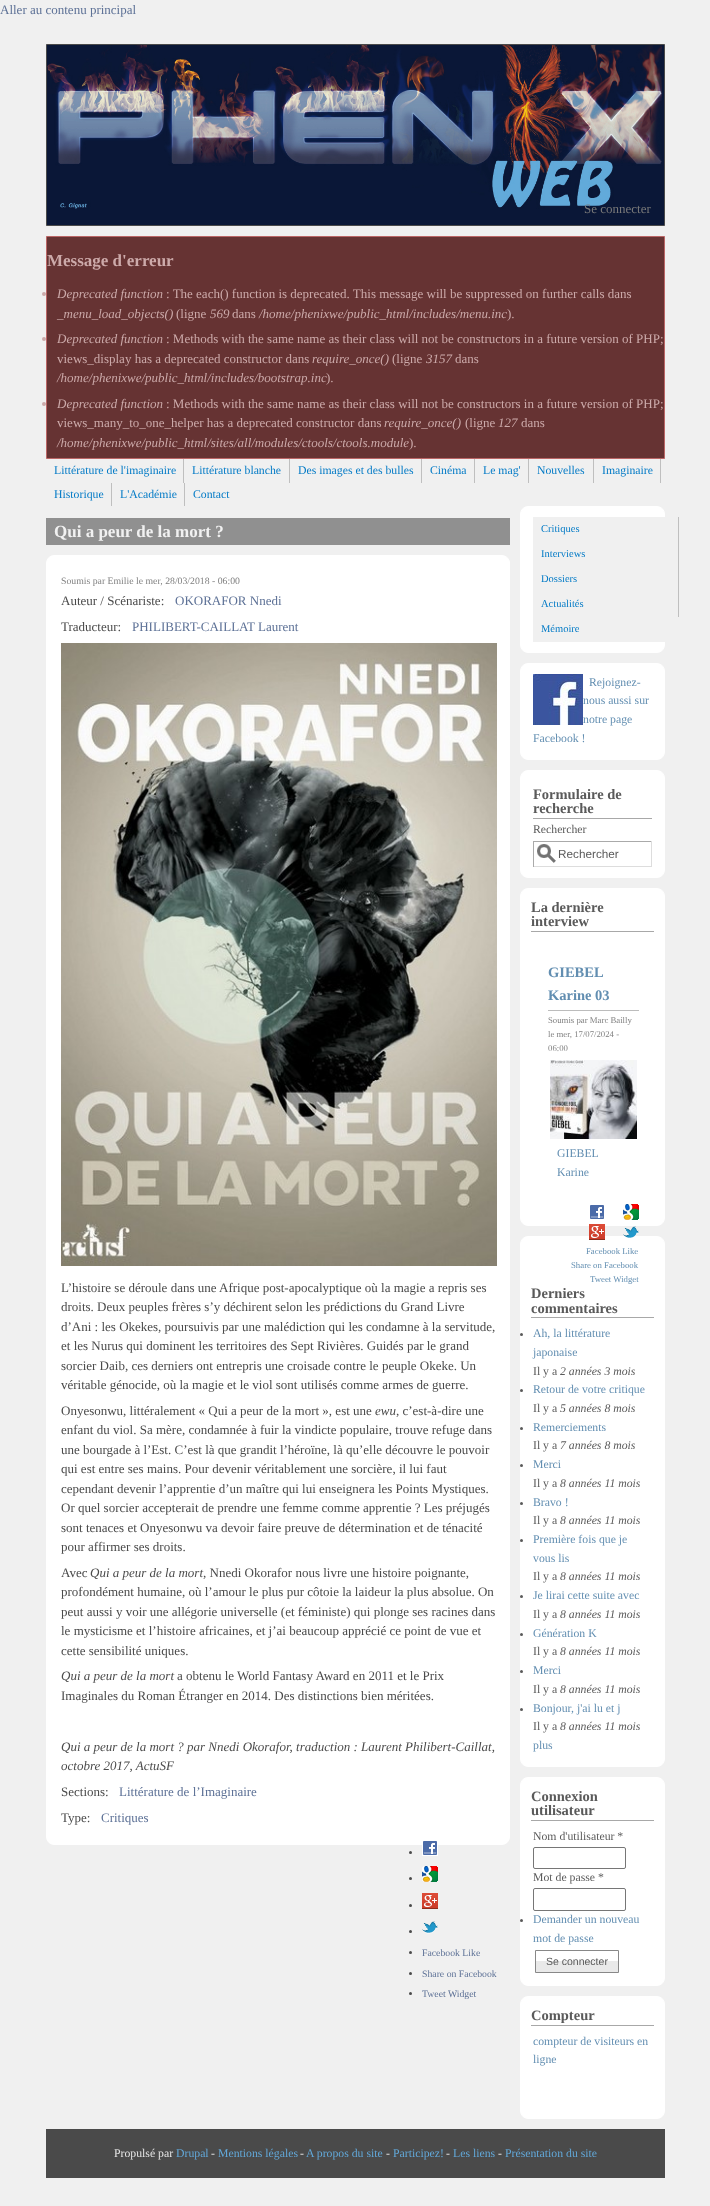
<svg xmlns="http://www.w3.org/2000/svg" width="710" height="2206">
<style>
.a{font:13px Liberation Serif;fill:#5d7196}
.b{font:13px Liberation Serif;fill:#797979}
.c{font:bold 17px Liberation Serif;fill:#caa}
.d{font:italic 13px Liberation Serif;fill:#caa}
.e{font:13px Liberation Serif;fill:#caa}
.f{font:11.75px Liberation Serif;fill:#027ac6}
.g{font:bold 17px Liberation Serif;fill:#f1f1f1}
.h{font:9.75px Liberation Serif;fill:#818181}
.i{font:13px Liberation Serif;fill:#4a4a4a}
.j{font:italic 13px Liberation Serif;fill:#4a4a4a}
.k{font:9.75px Liberation Serif;fill:#5d7196}
.l{font:10.5px Liberation Serif;fill:#027ac6}
.m{font:11.75px Liberation Serif;fill:#628eb1}
.n{font:bold 14.5px Liberation Serif;fill:#5a5a5a}
.o{font:11.75px Liberation Serif;fill:#5a5a5a}
.p{font:11.75px Liberation Sans;fill:#5a5a5a}
.q{font:bold 14.5px Liberation Serif;fill:#628eb1}
.r{font:8.75px Liberation Serif;fill:#818181}
.s{font:8.75px Liberation Serif;fill:#628eb1}
.t{font:italic 11.75px Liberation Serif;fill:#5a5a5a}
.u{font:10.5px Liberation Sans;fill:#5a5a5a}
.v{font:11.75px Liberation Serif;fill:#e6e6e6}
.w{font:11.75px Liberation Serif;fill:#62a8d9}
</style>
<defs>
<clipPath id="clip1"><path d="M61 617h63v19H61z"/></clipPath>
<clipPath id="clip2"><path d="M61 1808h32v19H61z"/></clipPath>
</defs>
<rect width="100%" height="100%" fill="#f0f0f0"/>
<path fill="#0a1737" stroke="#4a4a4a" d="M46.5 44.5h618v181H46.5z"/>
<image href="1.png" x="47" y="45" width="616" height="164"/>
<path fill="#633" stroke="#b66" d="M46.5 236.5h618v222H46.5z"/>
<circle fill="#caa" cx="44" cy="294" r="2"/>
<circle fill="#caa" cx="44" cy="339" r="2"/>
<circle fill="#caa" cx="44" cy="404" r="2"/>
<path fill="#bfbfbf" d="M183 459h1v24H183z"/>
<path fill="#bfbfbf" d="M289 459h1v24H289z"/>
<path fill="#bfbfbf" d="M421 459h1v24H421z"/>
<path fill="#bfbfbf" d="M474 459h1v24H474z"/>
<path fill="#bfbfbf" d="M528 459h1v24H528z"/>
<path fill="#bfbfbf" d="M593 459h1v24H593z"/>
<path fill="#bfbfbf" d="M660 459h1v24H660z"/>
<path fill="#bfbfbf" d="M111 483h1v23H111z"/>
<path fill="#bfbfbf" d="M184 483h1v23H184z"/>
<path fill="#909090" d="M46 518h464v27H46z"/>
<rect fill="#fff" stroke="#fff" x="46.5" y="555.5" width="463" height="1289" rx="7.5"/>
<image href="2.png" x="61" y="643" width="436" height="623"/>
<circle fill="#4a4a4a" cx="410.5" cy="1852.5" r="1.5"/>
<image href="3.png" x="422" y="1841" width="16" height="15"/>
<circle fill="#4a4a4a" cx="410.5" cy="1878.5" r="1.5"/>
<image href="4.png" x="422" y="1866" width="16" height="16"/>
<circle fill="#4a4a4a" cx="410.5" cy="1905.5" r="1.5"/>
<image href="5.png" x="422" y="1893" width="16" height="16"/>
<circle fill="#4a4a4a" cx="410.5" cy="1931.5" r="1.5"/>
<image href="6.png" x="422" y="1921" width="16" height="13"/>
<circle fill="#4a4a4a" cx="410.5" cy="1952.5" r="1.5"/>
<circle fill="#4a4a4a" cx="410.5" cy="1973.5" r="1.5"/>
<circle fill="#4a4a4a" cx="410.5" cy="1993.5" r="1.5"/>
<rect fill="#fff" stroke="#fff" x="520.5" y="506.5" width="144" height="146" rx="7.5"/>
<path fill="#f0f0f0" d="M533 517h132v125H533z"/>
<path fill="#bfbfbf" d="M678 517h1v100H678z"/>
<rect fill="#fff" stroke="#fff" x="520.5" y="663.5" width="144" height="96" rx="7.5"/>
<image href="7.png" x="533" y="674" width="50" height="51"/>
<rect fill="#fff" stroke="#fff" x="520.5" y="770.5" width="144" height="107" rx="7.5"/>
<path fill="#a8a8a8" d="M533 818h119v1H533z"/>
<image href="8.png" x="537" y="844" width="19" height="19"/>
<path fill="#aaa" d="M533 841h119v1H533z"/>
<path fill="#ddd" d="M651 841h1v26H651z"/>
<path fill="#ddd" d="M533 866h119v1H533z"/>
<path fill="#aaa" d="M533 841h1v26H533z"/>
<rect fill="#fff" stroke="#fff" x="520.5" y="888.5" width="144" height="337" rx="7.5"/>
<path fill="#a8a8a8" d="M531 931h123v1H531z"/>
<path fill="#bcbcbc" d="M548 1010h91v1H548z"/>
<image href="9.png" x="550" y="1060" width="87" height="79"/>
<image href="10.png" x="590" y="1205" width="14" height="14"/>
<image href="11.png" x="623" y="1204" width="16" height="16"/>
<rect fill="#fff" stroke="#fff" x="520.5" y="1236.5" width="144" height="530" rx="7.5"/>
<image href="5.png" x="589" y="1224" width="16" height="16"/>
<image href="12.png" x="623" y="1226" width="16" height="12"/>
<path fill="#a8a8a8" d="M531 1317h123v1H531z"/>
<circle fill="#5a5a5a" cx="521.5" cy="1334.5" r="1.5"/>
<circle fill="#5a5a5a" cx="521.5" cy="1390.5" r="1.5"/>
<circle fill="#5a5a5a" cx="521.5" cy="1428.5" r="1.5"/>
<circle fill="#5a5a5a" cx="521.5" cy="1465.5" r="1.5"/>
<circle fill="#5a5a5a" cx="521.5" cy="1503.5" r="1.5"/>
<circle fill="#5a5a5a" cx="521.5" cy="1540.5" r="1.5"/>
<circle fill="#5a5a5a" cx="521.5" cy="1596.5" r="1.5"/>
<circle fill="#5a5a5a" cx="521.5" cy="1634.5" r="1.5"/>
<circle fill="#5a5a5a" cx="521.5" cy="1671.5" r="1.5"/>
<circle fill="#5a5a5a" cx="521.5" cy="1709.5" r="1.5"/>
<rect fill="#fff" stroke="#fff" x="520.5" y="1777.5" width="144" height="208" rx="7.5"/>
<path fill="#a8a8a8" d="M531 1820h123v1H531z"/>
<rect fill="none" stroke="#767676" x="533.5" y="1847.5" width="92" height="21" rx="1.5"/>
<rect fill="none" stroke="#767676" x="533.5" y="1888.5" width="92" height="22" rx="1.5"/>
<circle fill="#5a5a5a" cx="521.5" cy="1920.5" r="1.5"/>
<path fill="#e9e9e9" d="M536 1961h82v11H536z"/>
<path fill="none" stroke="#888" d="M535.5 1950.5h83v22H535.5z"/>
<rect fill="#fff" stroke="#fff" x="520.5" y="1996.5" width="144" height="122" rx="7.5"/>
<path fill="#a8a8a8" d="M531 2025h123v1H531z"/>
<path fill="#4a4a4a" d="M46 2129h619v49H46z"/>
<text class="a" x="0" y="14">Aller au contenu principal</text>
<text class="b" x="584" y="213">Se connecter</text>
<text class="c" x="47" y="266">Message d'erreur</text>
<text class="d" x="57" y="298">Deprecated function</text>
<text class="e" x="166" y="298">: The each() function is deprecated. This message will be suppressed on further calls dans</text>
<text class="d" x="57" y="318">_menu_load_objects()</text>
<text class="e" x="176" y="318">(ligne</text>
<text class="d" x="210" y="318">569</text>
<text class="e" x="232" y="318">dans</text>
<text class="d" x="259" y="318">/home/phenixwe/public_html/includes/menu.inc</text>
<text class="e" x="507" y="318">).</text>
<text class="d" x="57" y="343">Deprecated function</text>
<text class="e" x="166" y="343">: Methods with the same name as their class will not be constructors in a future version of PHP;</text>
<text class="e" x="57" y="363">views_display has a deprecated constructor dans</text>
<text class="d" x="312" y="363">require_once()</text>
<text class="e" x="392" y="363">(ligne</text>
<text class="d" x="426" y="363">3157</text>
<text class="e" x="455" y="363">dans</text>
<text class="d" x="57" y="382">/home/phenixwe/public_html/includes/bootstrap.inc</text>
<text class="e" x="326" y="382">).</text>
<text class="d" x="57" y="408">Deprecated function</text>
<text class="e" x="166" y="408">: Methods with the same name as their class will not be constructors in a future version of PHP;</text>
<text class="e" x="57" y="427">views_many_to_one_helper has a deprecated constructor dans</text>
<text class="d" x="384" y="427">require_once()</text>
<text class="e" x="465" y="427">(ligne</text>
<text class="d" x="498" y="427">127</text>
<text class="e" x="521" y="427">dans</text>
<text class="d" x="57" y="447">/home/phenixwe/public_html/sites/all/modules/ctools/ctools.module</text>
<text class="e" x="409" y="447">).</text>
<text class="f" x="54" y="474">Littérature de l'imaginaire</text>
<text class="f" x="192" y="474">Littérature blanche</text>
<text class="f" x="298" y="474">Des images et des bulles</text>
<text class="f" x="430" y="474">Cinéma</text>
<text class="f" x="483" y="474">Le mag'</text>
<text class="f" x="537" y="474">Nouvelles</text>
<text class="f" x="602" y="474">Imaginaire</text>
<text class="f" x="54" y="498">Historique</text>
<text class="f" x="120" y="498">L'Académie</text>
<text class="f" x="193" y="498">Contact</text>
<text class="g" x="54" y="537">Qui a peur de la mort ?</text>
<text class="h" x="61" y="584">Soumis par Emilie le mer, 28/03/2018 - 06:00</text>
<text class="i" x="61" y="605">Auteur / Scénariste:</text>
<text class="a" x="175" y="605">OKORAFOR Nnedi</text>
<g clip-path="url(#clip1)">
<text class="i" x="61" y="631">Traducteur:</text>
</g>
<text class="a" x="132" y="631">PHILIBERT-CAILLAT Laurent</text>
<text class="i" x="61" y="1292">L’histoire se déroule dans une Afrique post-apocalyptique où la magie a repris ses</text>
<text class="i" x="61" y="1311">droits. Deux peuples frères s’y déchirent selon les prédictions du Grand Livre</text>
<text class="i" x="61" y="1331">d’Ani : les Okekes, poursuivis par une malédiction qui les condamne à la servitude,</text>
<text class="i" x="61" y="1350">et les Nurus qui dominent les territoires des Sept Rivières. Guidés par le grand</text>
<text class="i" x="61" y="1370">sorcier Daib, ces derniers ont entrepris une croisade contre le peuple Okeke. Un</text>
<text class="i" x="61" y="1389">véritable génocide, où la magie et le viol sont utilisés comme armes de guerre.</text>
<text class="i" x="61" y="1415">Onyesonwu, littéralement « Qui a peur de la mort », est une</text>
<text class="j" x="375" y="1415">ewu</text>
<text class="i" x="396" y="1415">, c’est-à-dire une</text>
<text class="i" x="61" y="1434">enfant du viol. Sa mère, condamnée à fuir la vindicte populaire, trouve refuge dans</text>
<text class="i" x="61" y="1454">une bourgade à l’Est. C’est là que grandit l’héroïne, là qu’elle découvre le pouvoir</text>
<text class="i" x="61" y="1473">qui est entre ses mains. Pour devenir véritablement une sorcière, il lui faut</text>
<text class="i" x="61" y="1493">cependant devenir l’apprentie d’un maître qui lui enseignera les Points Mystiques.</text>
<text class="i" x="61" y="1512">Or quel sorcier accepterait de prendre une femme comme apprentie ? Les préjugés</text>
<text class="i" x="61" y="1532">sont tenaces et Onyesonwu va devoir faire preuve de détermination et de ténacité</text>
<text class="i" x="61" y="1551">pour affirmer ses droits.</text>
<text class="i" x="61" y="1577">Avec</text>
<text class="j" x="90" y="1577">Qui a peur de la mort</text>
<text class="i" x="203" y="1577">, Nnedi Okorafor nous livre une histoire poignante,</text>
<text class="i" x="61" y="1596">profondément humaine, où l’amour le plus pur côtoie la laideur la plus absolue. On</text>
<text class="i" x="61" y="1616">peut aussi y voir une allégorie universelle (et féministe) qui plonge ses racines dans</text>
<text class="i" x="61" y="1635">le mysticisme et l’histoire africaines, et j’ai beaucoup apprécié ce point de vue et</text>
<text class="i" x="61" y="1655">cette sensibilité uniques.</text>
<text class="j" x="61" y="1680">Qui a peur de la mort</text>
<text class="i" x="177" y="1680">a obtenu le World Fantasy Award en 2011 et le Prix</text>
<text class="i" x="61" y="1700">Imaginales du Roman Étranger en 2014. Des distinctions bien méritées.</text>
<text class="j" x="61" y="1751">Qui a peur de la mort ? par Nnedi Okorafor, traduction : Laurent Philibert-Caillat,</text>
<text class="j" x="61" y="1770">octobre 2017, ActuSF</text>
<text class="i" x="61" y="1796">Sections:</text>
<text class="a" x="119" y="1796">Littérature de l’Imaginaire</text>
<g clip-path="url(#clip2)">
<text class="i" x="61" y="1822">Type:</text>
</g>
<text class="a" x="101" y="1822">Critiques</text>
<text class="k" x="422" y="1956">Facebook Like</text>
<text class="k" x="422" y="1977">Share on Facebook</text>
<text class="k" x="422" y="1997">Tweet Widget</text>
<text class="l" x="541" y="532">Critiques</text>
<text class="l" x="541" y="557">Interviews</text>
<text class="l" x="541" y="582">Dossiers</text>
<text class="l" x="541" y="607">Actualités</text>
<text class="l" x="541" y="632">Mémoire</text>
<text class="m" x="589" y="686">Rejoignez-</text>
<text class="m" x="583" y="704">nous aussi sur</text>
<text class="m" x="583" y="723">notre page</text>
<text class="m" x="533" y="742">Facebook !</text>
<text class="n" x="533" y="799">Formulaire de</text>
<text class="n" x="533" y="813">recherche</text>
<text class="o" x="533" y="833">Rechercher</text>
<text class="p" x="558" y="858">Rechercher</text>
<text class="n" x="531" y="912">La dernière</text>
<text class="n" x="531" y="926">interview</text>
<text class="q" x="548" y="977">GIEBEL</text>
<text class="q" x="548" y="1000">Karine 03</text>
<text class="r" x="548" y="1023">Soumis par Marc Bailly</text>
<text class="r" x="548" y="1037">le mer, 17/07/2024 -</text>
<text class="r" x="548" y="1051">06:00</text>
<text class="m" x="557" y="1157">GIEBEL</text>
<text class="m" x="557" y="1176">Karine</text>
<text class="s" x="586" y="1254">Facebook Like</text>
<text class="s" x="571" y="1268">Share on Facebook</text>
<text class="s" x="590" y="1282">Tweet Widget</text>
<text class="n" x="531" y="1298">Derniers</text>
<text class="n" x="531" y="1313">commentaires</text>
<text class="m" x="533" y="1337">Ah, la littérature</text>
<text class="m" x="533" y="1356">japonaise</text>
<text class="o" x="533" y="1375">Il y a</text>
<text class="t" x="560" y="1375">2 années 3 mois</text>
<text class="m" x="533" y="1393">Retour de votre critique</text>
<text class="o" x="533" y="1412">Il y a</text>
<text class="t" x="560" y="1412">5 années 8 mois</text>
<text class="m" x="533" y="1431">Remerciements</text>
<text class="o" x="533" y="1449">Il y a</text>
<text class="t" x="560" y="1449">7 années 8 mois</text>
<text class="m" x="533" y="1468">Merci</text>
<text class="o" x="533" y="1487">Il y a</text>
<text class="t" x="560" y="1487">8 années 11 mois</text>
<text class="m" x="533" y="1506">Bravo !</text>
<text class="o" x="533" y="1524">Il y a</text>
<text class="t" x="560" y="1524">8 années 11 mois</text>
<text class="m" x="533" y="1543">Première fois que je</text>
<text class="m" x="533" y="1562">vous lis</text>
<text class="o" x="533" y="1580">Il y a</text>
<text class="t" x="560" y="1580">8 années 11 mois</text>
<text class="m" x="533" y="1599">Je lirai cette suite avec</text>
<text class="o" x="533" y="1618">Il y a</text>
<text class="t" x="560" y="1618">8 années 11 mois</text>
<text class="m" x="533" y="1637">Génération K</text>
<text class="o" x="533" y="1655">Il y a</text>
<text class="t" x="560" y="1655">8 années 11 mois</text>
<text class="m" x="533" y="1674">Merci</text>
<text class="o" x="533" y="1693">Il y a</text>
<text class="t" x="560" y="1693">8 années 11 mois</text>
<text class="m" x="533" y="1712">Bonjour, j'ai lu et j</text>
<text class="o" x="533" y="1730">Il y a</text>
<text class="t" x="560" y="1730">8 années 11 mois</text>
<text class="m" x="533" y="1749">plus</text>
<text class="n" x="531" y="1801">Connexion</text>
<text class="n" x="531" y="1815">utilisateur</text>
<text class="o" x="533" y="1840">Nom d'utilisateur *</text>
<text class="o" x="533" y="1881">Mot de passe *</text>
<text class="m" x="533" y="1923">Demander un nouveau</text>
<text class="m" x="533" y="1942">mot de passe</text>
<text class="u" x="546" y="1965">Se connecter</text>
<text class="n" x="531" y="2020">Compteur</text>
<text class="m" x="533" y="2045">compteur de visiteurs en</text>
<text class="m" x="533" y="2063">ligne</text>
<text class="v" x="114" y="2157">Propulsé par</text>
<text class="w" x="176" y="2157">Drupal</text>
<text class="v" x="211" y="2157">-</text>
<text class="w" x="218" y="2157">Mentions légales</text>
<text class="v" x="300" y="2157">-</text>
<text class="w" x="306" y="2157">A propos du site</text>
<text class="v" x="386" y="2157">-</text>
<text class="w" x="393" y="2157">Participez!</text>
<text class="v" x="446" y="2157">-</text>
<text class="w" x="453" y="2157">Les liens</text>
<text class="v" x="498" y="2157">-</text>
<text class="w" x="505" y="2157">Présentation du site</text>
</svg>
